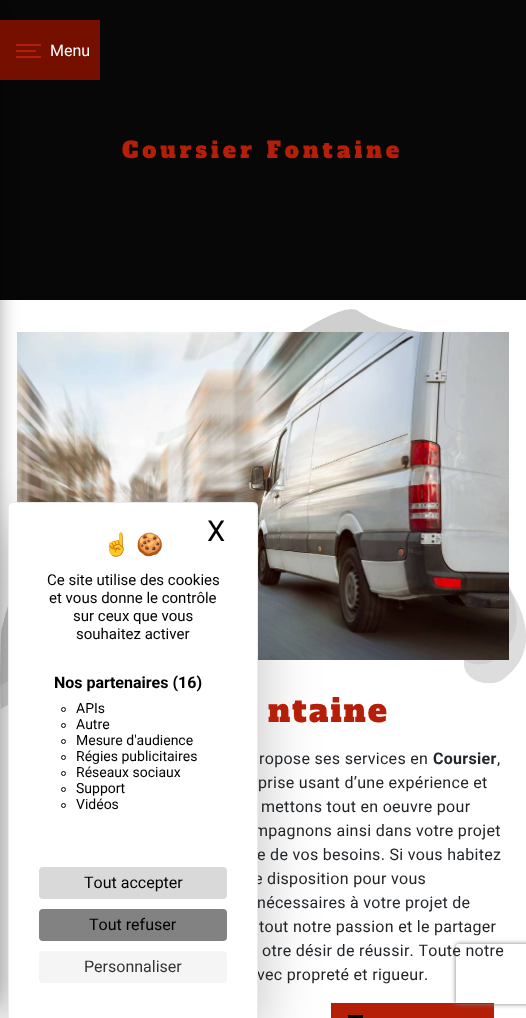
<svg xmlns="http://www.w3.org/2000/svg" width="526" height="1018">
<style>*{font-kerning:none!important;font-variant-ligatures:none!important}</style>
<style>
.a{font:16px Roboto;fill:#fff}
.b{font:22.4px Alfa Slab One;letter-spacing:4px;fill:#b51f07}
.c{font:32px Alfa Slab One;letter-spacing:2px;fill:#b51f07}
.d{font:16px Roboto;letter-spacing:0.3px;fill:#212529}
.e{font:bold 16px Roboto;letter-spacing:0.3px;fill:#212529}
.f{font:22px Noto Color Emoji;fill:#000}
.g{font:29px Roboto;fill:#000}
.h{font:15px Roboto;fill:#000}
.i{font:bold 16px Roboto;fill:#000}
.j{font:14px Roboto;fill:#000}
.k{font:16px Roboto;fill:#000}
.l{font:16px Roboto;fill:#333}
</style>
<defs>
<clipPath id="clip1"><path d="M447 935h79v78h-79zm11 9h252c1 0 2 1 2 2v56c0 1-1 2-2 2h-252c-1 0-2-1-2-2v-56c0-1 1-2 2-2z" clip-rule="evenodd"/></clipPath>
</defs>
<rect width="100%" height="100%" fill="#fff"/>
<path fill="#070707" d="M0 0h526v300H0z"/>
<image href="1.png" x="0" y="309" width="526" height="400"/>
<image href="2.png" x="17" y="332" width="492" height="328"/>
<path fill="#000" filter="blur(14.5px)" d="M-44 33h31v972H-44z"/>
<path fill="#751000" d="M0 20h100v60H0z"/>
<path fill="#b51f07" d="M16 44h25v2H16z"/>
<path fill="#b51f07" d="M16 50h20v2H16z"/>
<path fill="#b51f07" d="M16 56h25v2H16z"/>
<path fill="#b51f07" d="M331 1003h163v15H331z"/>
<path fill="#000" d="M348 1015h15v3H348z"/>
<rect fill="#00000040" filter="blur(30px)" x="8" y="522" width="250" height="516" rx="5"/>
<g clip-path="url(#clip1)">
<rect fill="#808080" filter="blur(2.5px)" x="456" y="944" width="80" height="60" rx="2"/>
</g>
<text class="a" x="50" y="56">Menu</text>
<text class="b" x="122" y="158">Coursier Fontaine</text>
<text class="c" x="268" y="722">ntaine</text>
<text class="d" x="259" y="764">ropose ses services en</text>
<text class="e" x="433" y="764">Coursier</text>
<text class="d" x="497" y="764">,</text>
<text class="d" x="258" y="788">prise usant d’une expérience et</text>
<text class="d" x="261" y="812">mettons tout en oeuvre pour</text>
<text class="d" x="254" y="836">mpagnons ainsi dans votre projet</text>
<text class="d" x="257" y="860">e de vos besoins. Si vous habitez</text>
<text class="d" x="254" y="884">e disposition pour vous</text>
<text class="d" x="257" y="908">nécessaires à votre projet de</text>
<text class="d" x="259" y="932">tout notre passion et le partager</text>
<text class="d" x="262" y="956">otre désir de réussir. Toute notre</text>
<text class="d" x="257" y="980">vec propreté et rigueur.</text>
<path fill="#fff" d="M13 502h240c3 0 5 2 5 5v511h-250v-511c0-3 2-5 5-5z"/>
<path fill="#00000014" fill-rule="evenodd" d="M13 502h240c3 0 5 2 5 5v511h-250v-511c0-3 2-5 5-5zm0 1h240c2 0 4 2 4 4v511h-248v-511c0-2 2-4 4-4z"/>
<text class="f" x="103" y="552">☝️</text>
<text class="f" x="136" y="552">🍪</text>
<text class="g" x="207" y="541">X</text>
<text class="h" x="47" y="585">Ce site utilise des cookies</text>
<text class="h" x="49" y="603">et vous donne le contrôle</text>
<text class="h" x="73" y="621">sur ceux que vous</text>
<text class="h" x="76" y="639">souhaitez activer</text>
<text class="i" x="54" y="688">Nos partenaires (16)</text>
<circle fill="none" stroke="#000" cx="63.5" cy="709.5" r="2"/>
<text class="j" x="76" y="713">APIs</text>
<circle fill="none" stroke="#000" cx="63.5" cy="725.5" r="2"/>
<text class="j" x="76" y="729">Autre</text>
<circle fill="none" stroke="#000" cx="63.5" cy="741.5" r="2"/>
<text class="j" x="76" y="745">Mesure d'audience</text>
<circle fill="none" stroke="#000" cx="63.5" cy="757.5" r="2"/>
<text class="j" x="76" y="761">Régies publicitaires</text>
<circle fill="none" stroke="#000" cx="63.5" cy="773.5" r="2"/>
<text class="j" x="76" y="777">Réseaux sociaux</text>
<circle fill="none" stroke="#000" cx="63.5" cy="789.5" r="2"/>
<text class="j" x="76" y="793">Support</text>
<circle fill="none" stroke="#000" cx="63.5" cy="805.5" r="2"/>
<text class="j" x="76" y="809">Vidéos</text>
<rect fill="#d9d9d9" x="39" y="867" width="188" height="32" rx="4"/>
<text class="k" x="84" y="888">Tout accepter</text>
<rect fill="#828282" x="39" y="909" width="188" height="32" rx="4"/>
<text class="k" x="89" y="930">Tout refuser</text>
<rect fill="#f5f5f5" x="39" y="951" width="188" height="32" rx="4"/>
<text class="l" x="84" y="972">Personnaliser</text>
</svg>
